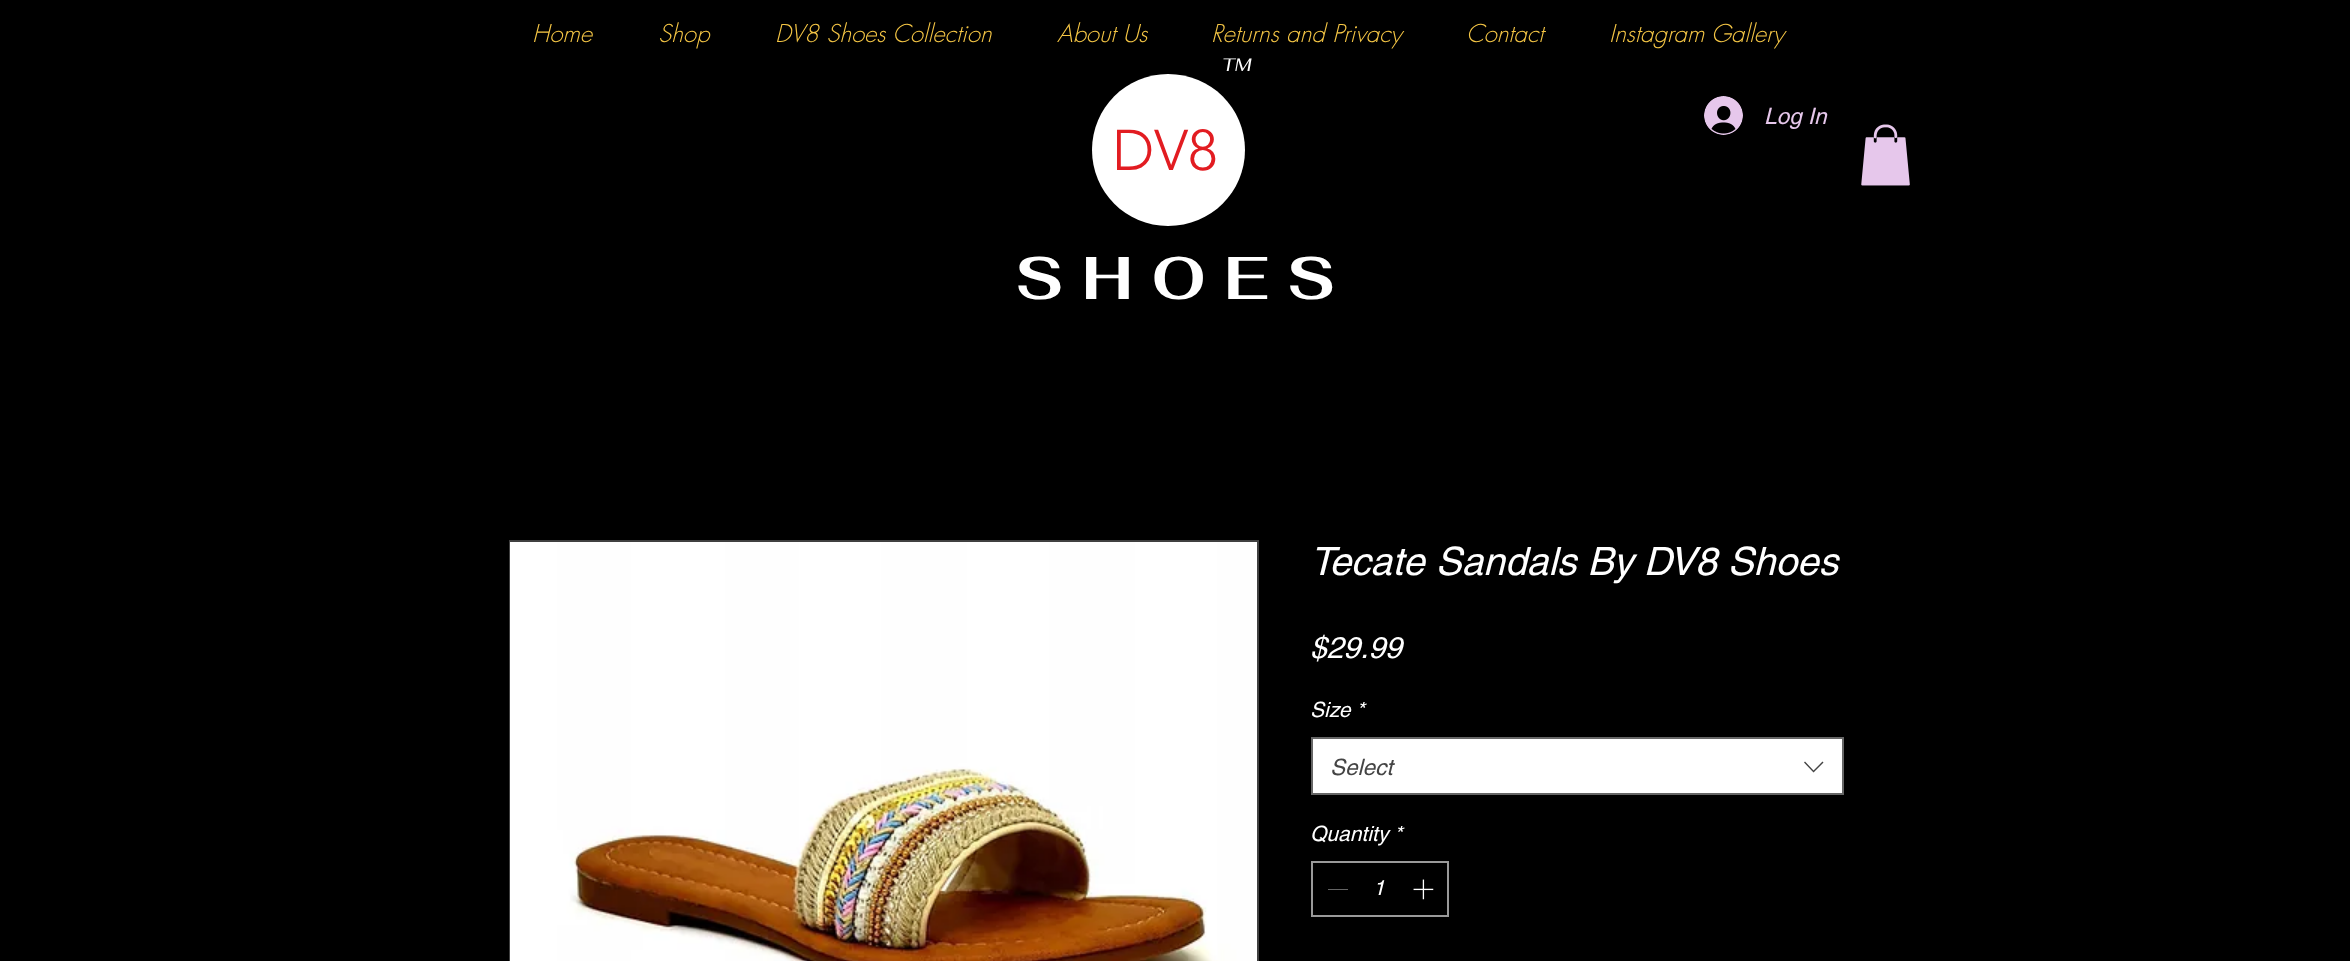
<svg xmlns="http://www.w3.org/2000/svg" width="2350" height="961">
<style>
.a{font:italic 300 24px futura;fill:#f5c645}
.b{font:italic 18px Fahkwang;fill:#fff}
.c{font:italic 22.5px helvetica;fill:#e6c7eb}
.d{font:300 57px 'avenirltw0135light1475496';fill:#e21c21}
.e{font:bold 60px Fahkwang;letter-spacing:18px;fill:#fff}
.f{font:italic 39px helvetica;fill:#fff}
.g{font:italic 30px helvetica;fill:#fff}
.h{font:italic 21px helvetica;fill:#fff}
.i{font:italic 22.5px helvetica;fill:#444}
</style>
<rect width="100%" height="100%" fill="#000"/>
<path fill="#fff" d="M1245 150c0 42-34 76-77 76c-42 0-76-34-76-76c0-42 34-76 76-76c43 0 77 34 77 76z"/>
<image href="1.png" x="1704" y="96" width="39" height="39"/>
<image href="2.png" x="1861" y="124" width="49" height="62"/>
<path fill="none" stroke="#404040" stroke-width="2" d="M510 541h748v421H510z"/>
<image href="3.png" x="510" y="542" width="747" height="419"/>
<path fill="#fff" stroke="#666" stroke-width="2" d="M1312 738h531v56H1312z"/>
<path fill="#444" fill-rule="evenodd" d="M1822.5 761.5l1 1l-10 10l-9.5-10l1-1l8.5 9z"/>
<path fill="none" stroke="#999" stroke-width="2" d="M1312 862h136v54H1312z"/>
<path fill="#646464" d="M1328 889h20v1H1328z"/>
<image href="4.png" x="1413" y="879" width="21" height="21"/>
<text class="a" x="532" y="42">Home</text>
<text class="a" x="658" y="42">Shop</text>
<text class="a" x="775" y="42">DV8 Shoes Collection</text>
<text class="a" x="1057" y="42">About Us</text>
<text class="a" x="1211" y="42">Returns and Privacy</text>
<text class="a" x="1466" y="42">Contact</text>
<text class="a" x="1609" y="42">Instagram Gallery</text>
<text class="b" x="1222" y="71">TM</text>
<text class="c" x="1764" y="124">Log In</text>
<text class="d" x="1112" y="170">DV8</text>
<text class="e" x="1015" y="299">SHOES</text>
<text class="f" x="1310" y="575">Tecate Sandals By DV8 Shoes</text>
<text class="g" x="1310" y="658">$29.99</text>
<text class="h" x="1310" y="717">Size *</text>
<text class="i" x="1330" y="775">Select</text>
<text class="h" x="1310" y="841">Quantity *</text>
<text class="h" x="1373" y="895">1</text>
</svg>
